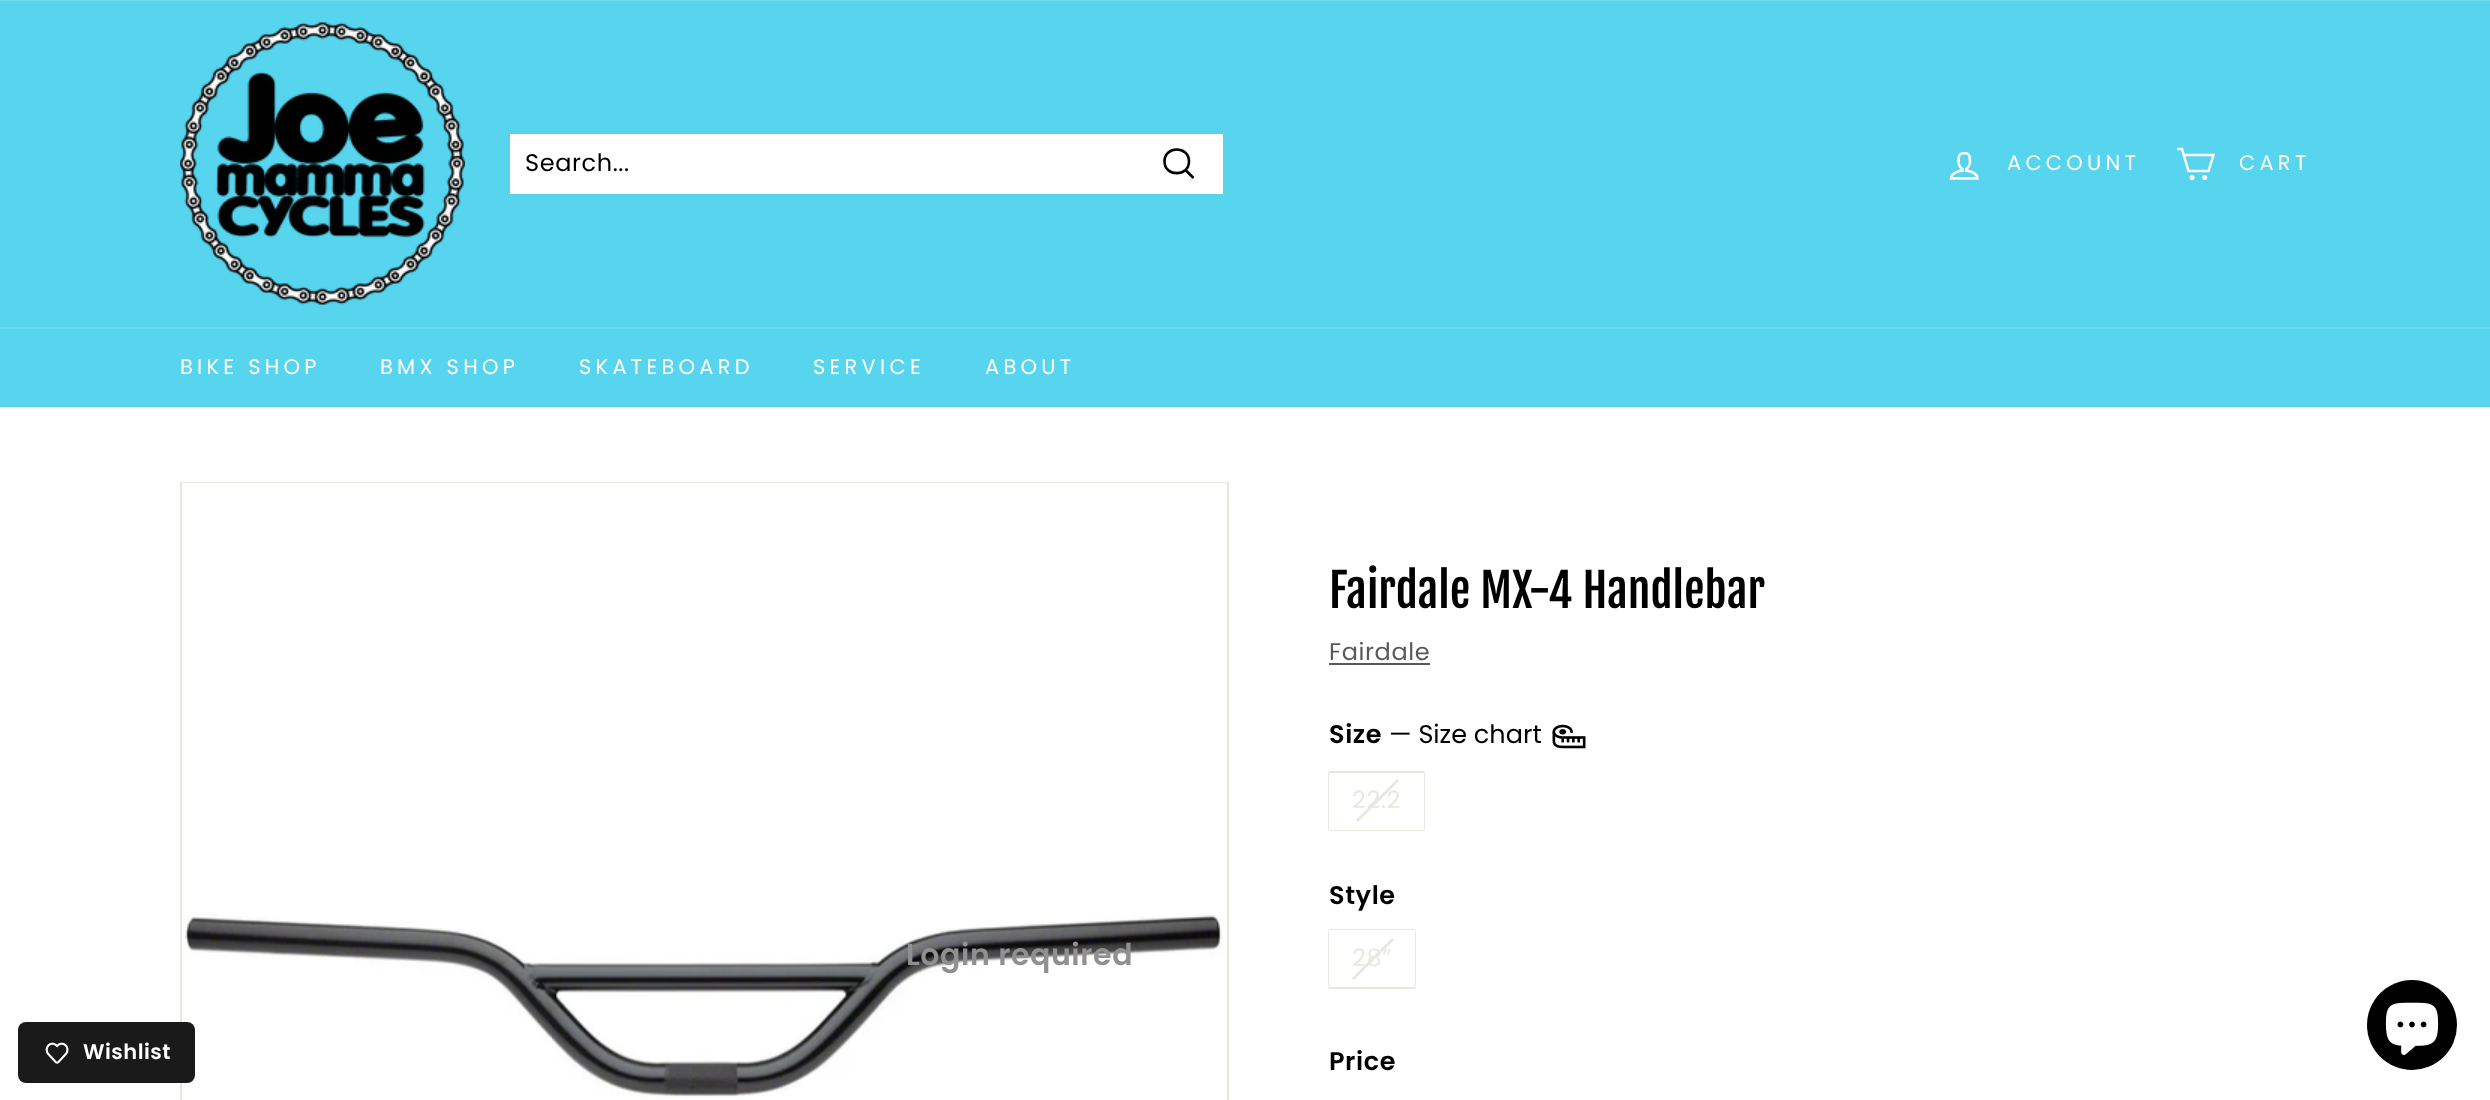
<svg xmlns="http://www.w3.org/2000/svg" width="2490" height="1100">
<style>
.a{font:24px Poppins;letter-spacing:0.6px;fill:#000}
.b{font:21px Poppins;letter-spacing:4.25px;fill:#fff}
.c{font:46px Fjalla One;fill:#000}
.d{font:24px Poppins;letter-spacing:0.6px;fill:#595959}
.e{font:600 25.5px Poppins;letter-spacing:0.6px;fill:#000}
.f{font:25.5px Poppins;fill:#000}
.g{font:24px Poppins;letter-spacing:0.6px;fill:#e8e8e1}
.h{font:600 30px Poppins;letter-spacing:0.6px;fill:#909090}
.i{font:600 21px Poppins;letter-spacing:0.5px;fill:#fff}
</style>
<rect width="100%" height="100%" fill="#fff"/>
<path fill="#70dbf1" d="M0 0h2490v1H0z"/>
<path fill="#57d5ef" d="M0 1h2490v326H0z"/>
<image href="1.png" x="180" y="22" width="285" height="283"/>
<path fill="#fff" d="M510 134h713v60H510z"/>
<path fill="none" stroke="#000" stroke-width="2.6" d="M1189 161.5c0 15.5-24.5 15.5-24.5 0c0-16 24.5-16 24.5 0zm4.5 16.5l-8-8"/>
<image href="2.png" x="1949" y="151" width="30" height="29"/>
<path fill="none" stroke="#fff" stroke-width="2.5" d="M2184 155h29.5l-5 16h-20l-6.5-22h-5"/>
<circle fill="none" stroke="#fff" stroke-width="2.5" cx="2192.1" cy="177.5" r="1.3"/>
<circle fill="none" stroke="#fff" stroke-width="2.5" cx="2204.7" cy="177.5" r="1.3"/>
<path fill="#57d5ef" d="M0 329h2490v78H0z"/>
<path fill="#68d9f1" d="M0 327h2490v2H0z"/>
<path fill="none" stroke="#e8e8e1" stroke-width="2" d="M181 483h1047v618H181z"/>
<path fill="#fff" d="M182 483h1045v1H182z"/>
<image href="3.png" x="182" y="914" width="1040" height="183"/>
<path fill="#595959" d="M1329 663h101v2H1329z"/>
<image href="4.png" x="1552" y="724" width="34" height="25"/>
<rect fill="none" stroke="#e8e8e1" stroke-width="2" x="1329" y="772" width="95" height="58" rx="2"/>
<rect fill="#fff" x="1329" y="773" width="95" height="57" rx="1.5"/>
<path fill="#e8e8e1" d="M1397 779l2 2l-41 41l-2-2z"/>
<rect fill="none" stroke="#e8e8e1" stroke-width="2" x="1329" y="930" width="86" height="58" rx="2"/>
<rect fill="#fff" x="1329" y="930" width="86" height="57" rx="1.5"/>
<path fill="#e8e8e1" d="M1392 938l2 2l-40 40l-2-2z"/>
<rect fill="#1a1a1a" x="18" y="1022" width="177" height="61" rx="8"/>
<image href="5.png" x="45" y="1042" width="24" height="22"/>
<circle fill="#000" cx="2412" cy="1025" r="45"/>
<image href="6.png" x="2385" y="1002" width="54" height="53"/>
<text class="a" x="525" y="171">Search...</text>
<text class="b" x="2007" y="170">ACCOUNT</text>
<text class="b" x="2239" y="170">CART</text>
<text class="b" x="180" y="374">BIKE SHOP</text>
<text class="b" x="380" y="374">BMX SHOP</text>
<text class="b" x="579" y="374">SKATEBOARD</text>
<text class="b" x="813" y="374">SERVICE</text>
<text class="b" x="985" y="374">ABOUT</text>
<text class="c" x="1329" y="608">Fairdale MX-4 Handlebar</text>
<text class="d" x="1329" y="660">Fairdale</text>
<text class="e" x="1329" y="743">Size</text>
<text class="f" x="1389" y="743">— Size chart</text>
<text class="g" x="1352" y="808">22.2</text>
<text class="e" x="1329" y="904">Style</text>
<text class="g" x="1352" y="966">28”</text>
<text class="e" x="1329" y="1070">Price</text>
<text class="h" x="906" y="965">Login required</text>
<text class="i" x="83" y="1059">Wishlist</text>
</svg>
